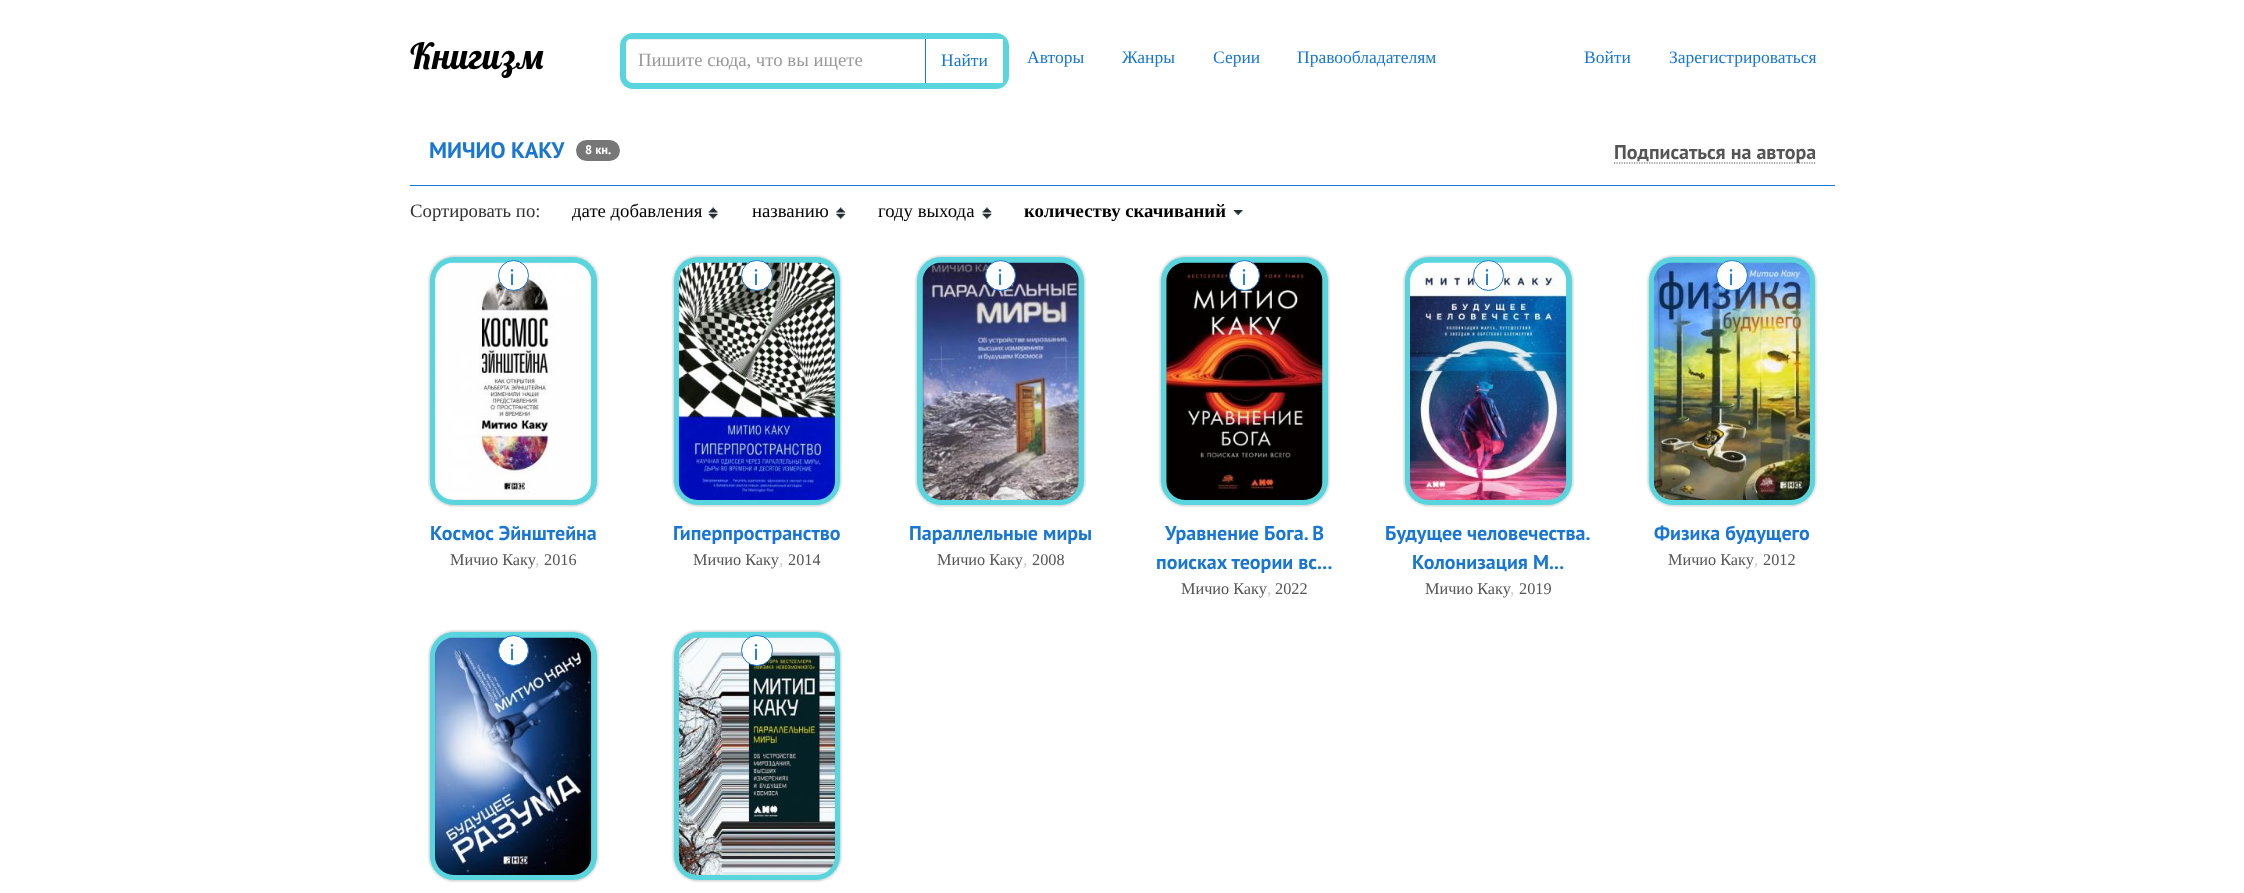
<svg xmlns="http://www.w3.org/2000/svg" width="2244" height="893">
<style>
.a{font:36px Lobster;fill:#000}
.b{font:18.75px Liberation Serif;fill:#999}
.c{font:17.5px Liberation Serif;fill:#1976d2}
.d{font:bold 22.5px PT Sans;fill:#1976d2}
.e{font:bold 12.5px PT Sans;fill:#fff}
.f{font:bold 20px PT Sans;fill:#555}
.g{font:18.75px Liberation Serif;fill:#333}
.h{font:18.75px Liberation Serif;fill:#000}
.i{font:bold 18.75px Liberation Serif;fill:#000}
.j{font:22.5px PT Sans;fill:#1976d2}
.k{font:bold 20px PT Sans;fill:#1976d2}
.l{font:16.25px Liberation Serif;fill:#555}
.m{font:17.5px Liberation Serif;fill:#ccc}
</style>
<defs>
<clipPath id="clip1"><path d="M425 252h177v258h-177zm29 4h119c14 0 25 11 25 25v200c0 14-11 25-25 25h-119c-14 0-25-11-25-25v-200c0-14 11-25 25-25z" clip-rule="evenodd"/></clipPath>
<clipPath id="clip2"><path d="M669 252h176v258h-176zm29 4h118c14 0 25 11 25 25v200c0 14-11 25-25 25h-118c-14 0-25-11-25-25v-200c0-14 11-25 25-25z" clip-rule="evenodd"/></clipPath>
<clipPath id="clip3"><path d="M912 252h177v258h-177zm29 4h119c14 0 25 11 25 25v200c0 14-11 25-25 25h-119c-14 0-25-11-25-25v-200c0-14 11-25 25-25z" clip-rule="evenodd"/></clipPath>
<clipPath id="clip4"><path d="M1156 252h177v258h-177zm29 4h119c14 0 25 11 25 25v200c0 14-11 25-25 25h-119c-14 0-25-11-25-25v-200c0-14 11-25 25-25z" clip-rule="evenodd"/></clipPath>
<clipPath id="clip5"><path d="M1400 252h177v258h-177zm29 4h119c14 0 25 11 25 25v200c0 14-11 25-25 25h-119c-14 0-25-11-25-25v-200c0-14 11-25 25-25z" clip-rule="evenodd"/></clipPath>
<clipPath id="clip6"><path d="M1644 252h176v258h-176zm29 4h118c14 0 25 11 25 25v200c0 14-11 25-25 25h-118c-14 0-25-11-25-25v-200c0-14 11-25 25-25z" clip-rule="evenodd"/></clipPath>
<clipPath id="clip7"><path d="M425 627h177v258h-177zm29 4h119c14 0 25 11 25 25v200c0 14-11 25-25 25h-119c-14 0-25-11-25-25v-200c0-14 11-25 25-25z" clip-rule="evenodd"/></clipPath>
<clipPath id="clip8"><path d="M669 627h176v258h-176zm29 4h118c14 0 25 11 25 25v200c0 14-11 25-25 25h-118c-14 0-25-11-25-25v-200c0-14 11-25 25-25z" clip-rule="evenodd"/></clipPath>
<clipPath id="clip9"><path d="M639 50h275v21H639z"/></clipPath>
</defs>
<rect width="100%" height="100%" fill="#fff"/>
<rect fill="none" stroke="#59d5de" stroke-width="6" x="623" y="36" width="383" height="50" rx="10"/>
<path fill="#fff" d="M631 39h295v42h-295c-3 0-5-2-5-5v-32c0-3 2-5 5-5z"/>
<path fill="#00000012" d="M631 40h295v-1h-295c-3 0-5 3-5 6c0-3 2-5 5-5z"/>
<path fill="#fff" d="M996 39h7v44H996z"/>
<path fill="#1976d2" d="M925 39h1v44H925z"/>
<path fill="#1976d2" d="M410 185h1425v1H410z"/>
<rect fill="#777" x="576" y="140" width="44" height="21" rx="10.5"/>
<path fill="none" stroke="#555" stroke-width="1.2" stroke-dasharray="1.25 1.25" d="M1614 163h202"/>
<image href="1.png" x="708" y="207" width="10" height="12"/>
<image href="2.png" x="836" y="207" width="10" height="12"/>
<image href="3.png" x="982" y="207" width="10" height="12"/>
<image href="4.png" x="1233" y="210" width="10" height="5"/>
<g clip-path="url(#clip1)">
<rect fill="#00000040" filter="blur(1px)" x="429" y="256" width="169" height="250" rx="25"/>
</g>
<rect fill="#59d5de" stroke="#ddd" x="429.5" y="256.5" width="168" height="249" rx="24.5"/>
<image href="5.png" x="435" y="262" width="157" height="238"/>
<circle fill="#fff" stroke="#1976d2" cx="513.5" cy="275.5" r="15"/>
<g clip-path="url(#clip2)">
<rect fill="#00000040" filter="blur(1px)" x="673" y="256" width="168" height="250" rx="25"/>
</g>
<rect fill="#59d5de" stroke="#ddd" x="673.5" y="256.5" width="167" height="249" rx="24.5"/>
<image href="6.png" x="678" y="262" width="157" height="238"/>
<rect fill="#fff" stroke="#1976d2" x="741.5" y="260.5" width="31" height="30" rx="15"/>
<g clip-path="url(#clip3)">
<rect fill="#00000040" filter="blur(1px)" x="916" y="256" width="169" height="250" rx="25"/>
</g>
<rect fill="#59d5de" stroke="#ddd" x="916.5" y="256.5" width="168" height="249" rx="24.5"/>
<image href="7.png" x="922" y="262" width="157" height="238"/>
<circle fill="#fff" stroke="#1976d2" cx="1000.5" cy="275.5" r="15"/>
<g clip-path="url(#clip4)">
<rect fill="#00000040" filter="blur(1px)" x="1160" y="256" width="169" height="250" rx="25"/>
</g>
<rect fill="#59d5de" stroke="#ddd" x="1160.5" y="256.5" width="168" height="249" rx="24.5"/>
<image href="8.png" x="1166" y="262" width="157" height="238"/>
<circle fill="#fff" stroke="#1976d2" cx="1244.5" cy="275.5" r="15"/>
<g clip-path="url(#clip5)">
<rect fill="#00000040" filter="blur(1px)" x="1404" y="256" width="169" height="250" rx="25"/>
</g>
<rect fill="#59d5de" stroke="#ddd" x="1404.5" y="256.5" width="168" height="249" rx="24.5"/>
<image href="9.png" x="1410" y="262" width="157" height="238"/>
<circle fill="#fff" stroke="#1976d2" cx="1488.5" cy="275.5" r="15"/>
<g clip-path="url(#clip6)">
<rect fill="#00000040" filter="blur(1px)" x="1648" y="256" width="168" height="250" rx="25"/>
</g>
<rect fill="#59d5de" stroke="#ddd" x="1648.5" y="256.5" width="167" height="249" rx="24.5"/>
<image href="10.png" x="1653" y="262" width="157" height="238"/>
<rect fill="#fff" stroke="#1976d2" x="1716.5" y="260.5" width="31" height="30" rx="15"/>
<g clip-path="url(#clip7)">
<rect fill="#00000040" filter="blur(1px)" x="429" y="631" width="169" height="250" rx="25"/>
</g>
<rect fill="#59d5de" stroke="#ddd" x="429.5" y="631.5" width="168" height="249" rx="24.5"/>
<image href="11.png" x="435" y="637" width="157" height="238"/>
<circle fill="#fff" stroke="#1976d2" cx="513.5" cy="650.5" r="15"/>
<g clip-path="url(#clip8)">
<rect fill="#00000040" filter="blur(1px)" x="673" y="631" width="168" height="250" rx="25"/>
</g>
<rect fill="#59d5de" stroke="#ddd" x="673.5" y="631.5" width="167" height="249" rx="24.5"/>
<image href="12.png" x="678" y="637" width="157" height="238"/>
<rect fill="#fff" stroke="#1976d2" x="741.5" y="635.5" width="31" height="30" rx="15"/>
<text class="a" x="410" y="69">Книгизм</text>
<g clip-path="url(#clip9)">
<text class="b" x="638" y="66">Пишите сюда, что вы ищете</text>
</g>
<text class="c" x="941" y="66">Найти</text>
<text class="c" x="1027" y="63">Авторы</text>
<text class="c" x="1122" y="63">Жанры</text>
<text class="c" x="1213" y="63">Серии</text>
<text class="c" x="1297" y="63">Правообладателям</text>
<text class="c" x="1584" y="63">Войти</text>
<text class="c" x="1669" y="63">Зарегистрироваться</text>
<text class="d" x="429" y="158">МИЧИО КАКУ</text>
<text class="e" x="585" y="154">8 кн.</text>
<text class="f" x="1614" y="159">Подписаться на автора</text>
<text class="g" x="410" y="217">Сортировать по:</text>
<text class="h" x="572" y="217">дате добавления</text>
<text class="h" x="752" y="217">названию</text>
<text class="h" x="878" y="217">году выхода</text>
<text class="i" x="1024" y="217">количеству скачиваний</text>
<text class="j" x="509" y="285">i</text>
<text class="k" x="430" y="540">Космос Эйнштейна</text>
<text class="l" x="450" y="565">Мичио Каку</text>
<text class="m" x="535" y="565">,</text>
<text class="l" x="544" y="565">2016</text>
<text class="j" x="753" y="285">i</text>
<text class="k" x="673" y="540">Гиперпространство</text>
<text class="l" x="693" y="565">Мичио Каку</text>
<text class="m" x="779" y="565">,</text>
<text class="l" x="788" y="565">2014</text>
<text class="j" x="997" y="285">i</text>
<text class="k" x="909" y="540">Параллельные миры</text>
<text class="l" x="937" y="565">Мичио Каку</text>
<text class="m" x="1023" y="565">,</text>
<text class="l" x="1032" y="565">2008</text>
<text class="j" x="1241" y="285">i</text>
<text class="k" x="1165" y="540">Уравнение Бога. В</text>
<text class="k" x="1156" y="569">поисках теории вс...</text>
<text class="l" x="1181" y="594">Мичио Каку</text>
<text class="m" x="1267" y="594">,</text>
<text class="l" x="1275" y="594">2022</text>
<text class="j" x="1484" y="285">i</text>
<text class="k" x="1385" y="540">Будущее человечества.</text>
<text class="k" x="1412" y="569">Колонизация М...</text>
<text class="l" x="1425" y="594">Мичио Каку</text>
<text class="m" x="1510" y="594">,</text>
<text class="l" x="1519" y="594">2019</text>
<text class="j" x="1728" y="285">i</text>
<text class="k" x="1654" y="540">Физика будущего</text>
<text class="l" x="1668" y="565">Мичио Каку</text>
<text class="m" x="1754" y="565">,</text>
<text class="l" x="1763" y="565">2012</text>
<text class="j" x="509" y="660">i</text>
<text class="j" x="753" y="660">i</text>
</svg>
